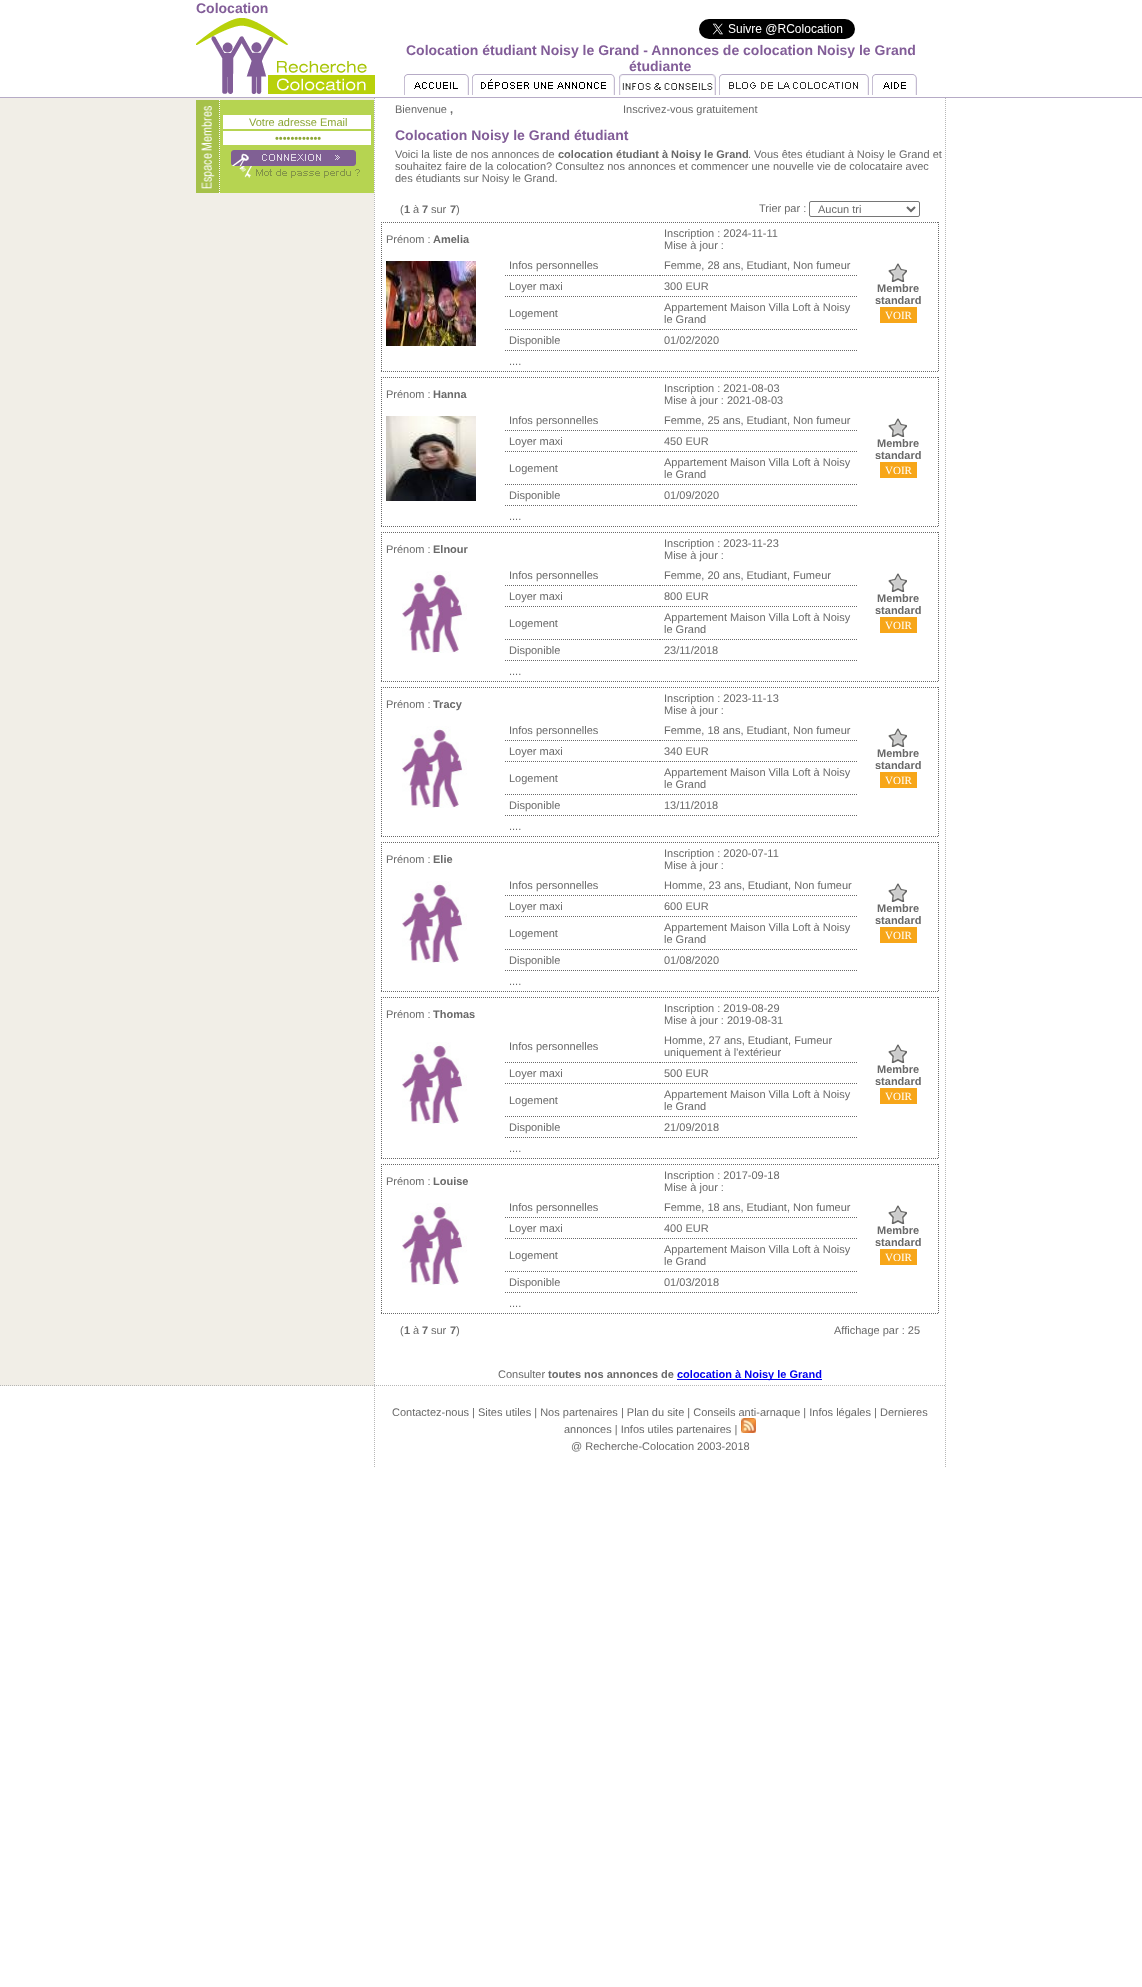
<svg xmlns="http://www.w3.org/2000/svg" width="1142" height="1987">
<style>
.a{font:bold 14px Liberation Sans;fill:#825d98}
.b{font:11px Liberation Sans;fill:#8ca637}
.c{font:11px Liberation Sans;fill:#696969}
.d{font:bold 11px Liberation Sans;fill:#696969}
.e{font:11px Liberation Serif;fill:#fff}
.f{font:bold 11px Liberation Sans;fill:#00e}
</style>
<rect width="100%" height="100%" fill="#fff"/>
<image href="1.png" x="196" y="18" width="179" height="76"/>
<image href="2.png" x="699" y="19" width="156" height="20"/>
<image href="3.png" x="404" y="74" width="65" height="21"/>
<image href="4.png" x="472" y="74" width="143" height="21"/>
<image href="5.png" x="619" y="74" width="97" height="21"/>
<image href="6.png" x="719" y="74" width="150" height="21"/>
<image href="7.png" x="872" y="74" width="45" height="21"/>
<path fill="#b6abc6" d="M0 97h1142v1H0z"/>
<path fill="#f1eee7" d="M0 98h374v1288H0z"/>
<path fill="none" stroke="#b7b7b7" stroke-dasharray="1 1" d="M0 1385.5h196"/>
<path fill="none" stroke="#b7b7b7" stroke-dasharray="1 1" d="M196 1385.5h178"/>
<path fill="#a6c14a" d="M196 100h24v93H196z"/>
<path fill="none" stroke="#fff" stroke-dasharray="1 1" d="M219.5 100v93"/>
<image href="8.png" x="201" y="106" width="14" height="83"/>
<path fill="#b6d451" d="M220 100h154v93H220z"/>
<path fill="#fff" d="M223 115h148v14H223z"/>
<path fill="#fff" d="M223 131h148v14H223z"/>
<image href="9.png" x="231" y="150" width="125" height="16"/>
<image href="10.png" x="239" y="166" width="121" height="12"/>
<path fill="none" stroke="#b7b7b7" stroke-dasharray="1 1" d="M945.5 98v1288"/>
<path fill="none" stroke="#b7b7b7" stroke-dasharray="1 1" d="M374 1385.5h572"/>
<path fill="none" stroke="#b7b7b7" stroke-dasharray="1 1" d="M374.5 98v1288"/>
<rect fill="none" stroke="#767676" x="809.5" y="201.5" width="110" height="15" rx="1.5"/>
<path fill="none" stroke="#696969" stroke-width="2" d="M907 207l4 4l4-4"/>
<path fill="none" stroke="#696969" stroke-dasharray="1 1" d="M381 222.5h558"/>
<path fill="none" stroke="#696969" stroke-dasharray="1 1" d="M938.5 222v150"/>
<path fill="none" stroke="#696969" stroke-dasharray="1 1" d="M381 371.5h558"/>
<path fill="none" stroke="#696969" stroke-dasharray="1 1" d="M381.5 222v150"/>
<image href="11.png" x="386" y="261" width="90" height="85"/>
<path fill="none" stroke="#696969" stroke-dasharray="1 1" d="M505 275.5h155"/>
<path fill="none" stroke="#696969" stroke-dasharray="1 1" d="M660 275.5h198"/>
<image href="12.png" x="888" y="263" width="19" height="19"/>
<path fill="#f7a619" d="M880 307h37v16H880z"/>
<path fill="none" stroke="#696969" stroke-dasharray="1 1" d="M505 296.5h155"/>
<path fill="none" stroke="#696969" stroke-dasharray="1 1" d="M660 296.5h198"/>
<path fill="none" stroke="#696969" stroke-dasharray="1 1" d="M505 329.5h155"/>
<path fill="none" stroke="#696969" stroke-dasharray="1 1" d="M660 329.5h198"/>
<path fill="none" stroke="#696969" stroke-dasharray="1 1" d="M505 350.5h155"/>
<path fill="none" stroke="#696969" stroke-dasharray="1 1" d="M660 350.5h198"/>
<path fill="none" stroke="#696969" stroke-dasharray="1 1" d="M381 377.5h558"/>
<path fill="none" stroke="#696969" stroke-dasharray="1 1" d="M938.5 377v150"/>
<path fill="none" stroke="#696969" stroke-dasharray="1 1" d="M381 526.5h558"/>
<path fill="none" stroke="#696969" stroke-dasharray="1 1" d="M381.5 377v150"/>
<image href="13.png" x="386" y="416" width="90" height="85"/>
<path fill="none" stroke="#696969" stroke-dasharray="1 1" d="M505 430.5h155"/>
<path fill="none" stroke="#696969" stroke-dasharray="1 1" d="M660 430.5h198"/>
<image href="12.png" x="888" y="418" width="19" height="19"/>
<path fill="#f7a619" d="M880 462h37v16H880z"/>
<path fill="none" stroke="#696969" stroke-dasharray="1 1" d="M505 451.5h155"/>
<path fill="none" stroke="#696969" stroke-dasharray="1 1" d="M660 451.5h198"/>
<path fill="none" stroke="#696969" stroke-dasharray="1 1" d="M505 484.5h155"/>
<path fill="none" stroke="#696969" stroke-dasharray="1 1" d="M660 484.5h198"/>
<path fill="none" stroke="#696969" stroke-dasharray="1 1" d="M505 505.5h155"/>
<path fill="none" stroke="#696969" stroke-dasharray="1 1" d="M660 505.5h198"/>
<path fill="none" stroke="#696969" stroke-dasharray="1 1" d="M381 532.5h558"/>
<path fill="none" stroke="#696969" stroke-dasharray="1 1" d="M938.5 532v150"/>
<path fill="none" stroke="#696969" stroke-dasharray="1 1" d="M381 681.5h558"/>
<path fill="none" stroke="#696969" stroke-dasharray="1 1" d="M381.5 532v150"/>
<image href="14.png" x="402" y="571" width="65" height="82"/>
<path fill="none" stroke="#696969" stroke-dasharray="1 1" d="M505 585.5h155"/>
<path fill="none" stroke="#696969" stroke-dasharray="1 1" d="M660 585.5h198"/>
<image href="12.png" x="888" y="573" width="19" height="19"/>
<path fill="#f7a619" d="M880 617h37v16H880z"/>
<path fill="none" stroke="#696969" stroke-dasharray="1 1" d="M505 606.5h155"/>
<path fill="none" stroke="#696969" stroke-dasharray="1 1" d="M660 606.5h198"/>
<path fill="none" stroke="#696969" stroke-dasharray="1 1" d="M505 639.5h155"/>
<path fill="none" stroke="#696969" stroke-dasharray="1 1" d="M660 639.5h198"/>
<path fill="none" stroke="#696969" stroke-dasharray="1 1" d="M505 660.5h155"/>
<path fill="none" stroke="#696969" stroke-dasharray="1 1" d="M660 660.5h198"/>
<path fill="none" stroke="#696969" stroke-dasharray="1 1" d="M381 687.5h558"/>
<path fill="none" stroke="#696969" stroke-dasharray="1 1" d="M938.5 687v150"/>
<path fill="none" stroke="#696969" stroke-dasharray="1 1" d="M381 836.5h558"/>
<path fill="none" stroke="#696969" stroke-dasharray="1 1" d="M381.5 687v150"/>
<image href="14.png" x="402" y="726" width="65" height="82"/>
<path fill="none" stroke="#696969" stroke-dasharray="1 1" d="M505 740.5h155"/>
<path fill="none" stroke="#696969" stroke-dasharray="1 1" d="M660 740.5h198"/>
<image href="12.png" x="888" y="728" width="19" height="19"/>
<path fill="#f7a619" d="M880 772h37v16H880z"/>
<path fill="none" stroke="#696969" stroke-dasharray="1 1" d="M505 761.5h155"/>
<path fill="none" stroke="#696969" stroke-dasharray="1 1" d="M660 761.5h198"/>
<path fill="none" stroke="#696969" stroke-dasharray="1 1" d="M505 794.5h155"/>
<path fill="none" stroke="#696969" stroke-dasharray="1 1" d="M660 794.5h198"/>
<path fill="none" stroke="#696969" stroke-dasharray="1 1" d="M505 815.5h155"/>
<path fill="none" stroke="#696969" stroke-dasharray="1 1" d="M660 815.5h198"/>
<path fill="none" stroke="#696969" stroke-dasharray="1 1" d="M381 842.5h558"/>
<path fill="none" stroke="#696969" stroke-dasharray="1 1" d="M938.5 842v150"/>
<path fill="none" stroke="#696969" stroke-dasharray="1 1" d="M381 991.5h558"/>
<path fill="none" stroke="#696969" stroke-dasharray="1 1" d="M381.5 842v150"/>
<image href="14.png" x="402" y="881" width="65" height="82"/>
<path fill="none" stroke="#696969" stroke-dasharray="1 1" d="M505 895.5h155"/>
<path fill="none" stroke="#696969" stroke-dasharray="1 1" d="M660 895.5h198"/>
<image href="12.png" x="888" y="883" width="19" height="19"/>
<path fill="#f7a619" d="M880 927h37v16H880z"/>
<path fill="none" stroke="#696969" stroke-dasharray="1 1" d="M505 916.5h155"/>
<path fill="none" stroke="#696969" stroke-dasharray="1 1" d="M660 916.5h198"/>
<path fill="none" stroke="#696969" stroke-dasharray="1 1" d="M505 949.5h155"/>
<path fill="none" stroke="#696969" stroke-dasharray="1 1" d="M660 949.5h198"/>
<path fill="none" stroke="#696969" stroke-dasharray="1 1" d="M505 970.5h155"/>
<path fill="none" stroke="#696969" stroke-dasharray="1 1" d="M660 970.5h198"/>
<path fill="none" stroke="#696969" stroke-dasharray="1 1" d="M381 997.5h558"/>
<path fill="none" stroke="#696969" stroke-dasharray="1 1" d="M938.5 997v162"/>
<path fill="none" stroke="#696969" stroke-dasharray="1 1" d="M381 1158.5h558"/>
<path fill="none" stroke="#696969" stroke-dasharray="1 1" d="M381.5 997v162"/>
<image href="14.png" x="402" y="1042" width="65" height="82"/>
<path fill="none" stroke="#696969" stroke-dasharray="1 1" d="M505 1062.5h155"/>
<path fill="none" stroke="#696969" stroke-dasharray="1 1" d="M660 1062.5h198"/>
<image href="12.png" x="888" y="1044" width="19" height="19"/>
<path fill="#f7a619" d="M880 1088h37v16H880z"/>
<path fill="none" stroke="#696969" stroke-dasharray="1 1" d="M505 1083.5h155"/>
<path fill="none" stroke="#696969" stroke-dasharray="1 1" d="M660 1083.5h198"/>
<path fill="none" stroke="#696969" stroke-dasharray="1 1" d="M505 1116.5h155"/>
<path fill="none" stroke="#696969" stroke-dasharray="1 1" d="M660 1116.5h198"/>
<path fill="none" stroke="#696969" stroke-dasharray="1 1" d="M505 1137.5h155"/>
<path fill="none" stroke="#696969" stroke-dasharray="1 1" d="M660 1137.5h198"/>
<path fill="none" stroke="#696969" stroke-dasharray="1 1" d="M381 1164.5h558"/>
<path fill="none" stroke="#696969" stroke-dasharray="1 1" d="M938.5 1164v150"/>
<path fill="none" stroke="#696969" stroke-dasharray="1 1" d="M381 1313.5h558"/>
<path fill="none" stroke="#696969" stroke-dasharray="1 1" d="M381.5 1164v150"/>
<image href="14.png" x="402" y="1203" width="65" height="82"/>
<path fill="none" stroke="#696969" stroke-dasharray="1 1" d="M505 1217.5h155"/>
<path fill="none" stroke="#696969" stroke-dasharray="1 1" d="M660 1217.5h198"/>
<image href="12.png" x="888" y="1205" width="19" height="19"/>
<path fill="#f7a619" d="M880 1249h37v16H880z"/>
<path fill="none" stroke="#696969" stroke-dasharray="1 1" d="M505 1238.5h155"/>
<path fill="none" stroke="#696969" stroke-dasharray="1 1" d="M660 1238.5h198"/>
<path fill="none" stroke="#696969" stroke-dasharray="1 1" d="M505 1271.5h155"/>
<path fill="none" stroke="#696969" stroke-dasharray="1 1" d="M660 1271.5h198"/>
<path fill="none" stroke="#696969" stroke-dasharray="1 1" d="M505 1292.5h155"/>
<path fill="none" stroke="#696969" stroke-dasharray="1 1" d="M660 1292.5h198"/>
<path fill="#00e" d="M677 1379h145v1H677z"/>
<path fill="none" stroke="#b7b7b7" stroke-dasharray="1 1" d="M374.5 1386v81"/>
<path fill="none" stroke="#b7b7b7" stroke-dasharray="1 1" d="M945.5 1386v81"/>
<text class="a" x="196" y="13">Colocation</text>
<text class="a" x="406" y="55">Colocation étudiant Noisy le Grand - Annonces de colocation Noisy le Grand</text>
<text class="a" x="629" y="71">étudiante</text>
<text class="b" x="249" y="126">Votre adresse Email</text>
<text class="b" x="275" y="142">••••••••••••</text>
<text class="c" x="395" y="113">Bienvenue</text>
<text class="d" x="450" y="113">,</text>
<text class="c" x="623" y="113">Inscrivez-vous gratuitement</text>
<text class="a" x="395" y="140">Colocation Noisy le Grand étudiant</text>
<text class="c" x="395" y="158">Voici la liste de nos annonces de</text>
<text class="d" x="558" y="158">colocation étudiant à Noisy le Grand</text>
<text class="c" x="748" y="158">. Vous êtes étudiant à Noisy le Grand et</text>
<text class="c" x="395" y="170">souhaitez faire de la colocation? Consultez nos annonces et commencer une nouvelle vie de colocataire avec</text>
<text class="c" x="395" y="182">des étudiants sur Noisy le Grand.</text>
<text class="c" x="400" y="213">(</text>
<text class="d" x="404" y="213">1</text>
<text class="c" x="413" y="213">à</text>
<text class="d" x="422" y="213">7</text>
<text class="c" x="431" y="213">sur</text>
<text class="d" x="450" y="213">7</text>
<text class="c" x="456" y="213">)</text>
<text class="c" x="759" y="212">Trier par :</text>
<text class="c" x="818" y="213">Aucun tri</text>
<text class="c" x="386" y="243">Prénom :</text>
<text class="d" x="433" y="243">Amelia</text>
<text class="c" x="664" y="237">Inscription : 2024-11-11</text>
<text class="c" x="664" y="249">Mise à jour :</text>
<text class="c" x="509" y="269">Infos personnelles</text>
<text class="c" x="664" y="269">Femme, 28 ans, Etudiant, Non fumeur</text>
<text class="d" x="877" y="292">Membre</text>
<text class="d" x="875" y="304">standard</text>
<text class="e" x="885" y="319">VOIR</text>
<text class="c" x="509" y="290">Loyer maxi</text>
<text class="c" x="664" y="290">300 EUR</text>
<text class="c" x="509" y="317">Logement</text>
<text class="c" x="664" y="311">Appartement Maison Villa Loft à Noisy</text>
<text class="c" x="664" y="323">le Grand</text>
<text class="c" x="509" y="344">Disponible</text>
<text class="c" x="664" y="344">01/02/2020</text>
<text class="c" x="509" y="365">....</text>
<text class="c" x="386" y="398">Prénom :</text>
<text class="d" x="433" y="398">Hanna</text>
<text class="c" x="664" y="392">Inscription : 2021-08-03</text>
<text class="c" x="664" y="404">Mise à jour : 2021-08-03</text>
<text class="c" x="509" y="424">Infos personnelles</text>
<text class="c" x="664" y="424">Femme, 25 ans, Etudiant, Non fumeur</text>
<text class="d" x="877" y="447">Membre</text>
<text class="d" x="875" y="459">standard</text>
<text class="e" x="885" y="474">VOIR</text>
<text class="c" x="509" y="445">Loyer maxi</text>
<text class="c" x="664" y="445">450 EUR</text>
<text class="c" x="509" y="472">Logement</text>
<text class="c" x="664" y="466">Appartement Maison Villa Loft à Noisy</text>
<text class="c" x="664" y="478">le Grand</text>
<text class="c" x="509" y="499">Disponible</text>
<text class="c" x="664" y="499">01/09/2020</text>
<text class="c" x="509" y="520">....</text>
<text class="c" x="386" y="553">Prénom :</text>
<text class="d" x="433" y="553">Elnour</text>
<text class="c" x="664" y="547">Inscription : 2023-11-23</text>
<text class="c" x="664" y="559">Mise à jour :</text>
<text class="c" x="509" y="579">Infos personnelles</text>
<text class="c" x="664" y="579">Femme, 20 ans, Etudiant, Fumeur</text>
<text class="d" x="877" y="602">Membre</text>
<text class="d" x="875" y="614">standard</text>
<text class="e" x="885" y="629">VOIR</text>
<text class="c" x="509" y="600">Loyer maxi</text>
<text class="c" x="664" y="600">800 EUR</text>
<text class="c" x="509" y="627">Logement</text>
<text class="c" x="664" y="621">Appartement Maison Villa Loft à Noisy</text>
<text class="c" x="664" y="633">le Grand</text>
<text class="c" x="509" y="654">Disponible</text>
<text class="c" x="664" y="654">23/11/2018</text>
<text class="c" x="509" y="675">....</text>
<text class="c" x="386" y="708">Prénom :</text>
<text class="d" x="433" y="708">Tracy</text>
<text class="c" x="664" y="702">Inscription : 2023-11-13</text>
<text class="c" x="664" y="714">Mise à jour :</text>
<text class="c" x="509" y="734">Infos personnelles</text>
<text class="c" x="664" y="734">Femme, 18 ans, Etudiant, Non fumeur</text>
<text class="d" x="877" y="757">Membre</text>
<text class="d" x="875" y="769">standard</text>
<text class="e" x="885" y="784">VOIR</text>
<text class="c" x="509" y="755">Loyer maxi</text>
<text class="c" x="664" y="755">340 EUR</text>
<text class="c" x="509" y="782">Logement</text>
<text class="c" x="664" y="776">Appartement Maison Villa Loft à Noisy</text>
<text class="c" x="664" y="788">le Grand</text>
<text class="c" x="509" y="809">Disponible</text>
<text class="c" x="664" y="809">13/11/2018</text>
<text class="c" x="509" y="830">....</text>
<text class="c" x="386" y="863">Prénom :</text>
<text class="d" x="433" y="863">Elie</text>
<text class="c" x="664" y="857">Inscription : 2020-07-11</text>
<text class="c" x="664" y="869">Mise à jour :</text>
<text class="c" x="509" y="889">Infos personnelles</text>
<text class="c" x="664" y="889">Homme, 23 ans, Etudiant, Non fumeur</text>
<text class="d" x="877" y="912">Membre</text>
<text class="d" x="875" y="924">standard</text>
<text class="e" x="885" y="939">VOIR</text>
<text class="c" x="509" y="910">Loyer maxi</text>
<text class="c" x="664" y="910">600 EUR</text>
<text class="c" x="509" y="937">Logement</text>
<text class="c" x="664" y="931">Appartement Maison Villa Loft à Noisy</text>
<text class="c" x="664" y="943">le Grand</text>
<text class="c" x="509" y="964">Disponible</text>
<text class="c" x="664" y="964">01/08/2020</text>
<text class="c" x="509" y="985">....</text>
<text class="c" x="386" y="1018">Prénom :</text>
<text class="d" x="433" y="1018">Thomas</text>
<text class="c" x="664" y="1012">Inscription : 2019-08-29</text>
<text class="c" x="664" y="1024">Mise à jour : 2019-08-31</text>
<text class="c" x="509" y="1050">Infos personnelles</text>
<text class="c" x="664" y="1044">Homme, 27 ans, Etudiant, Fumeur</text>
<text class="c" x="664" y="1056">uniquement à l'extérieur</text>
<text class="d" x="877" y="1073">Membre</text>
<text class="d" x="875" y="1085">standard</text>
<text class="e" x="885" y="1100">VOIR</text>
<text class="c" x="509" y="1077">Loyer maxi</text>
<text class="c" x="664" y="1077">500 EUR</text>
<text class="c" x="509" y="1104">Logement</text>
<text class="c" x="664" y="1098">Appartement Maison Villa Loft à Noisy</text>
<text class="c" x="664" y="1110">le Grand</text>
<text class="c" x="509" y="1131">Disponible</text>
<text class="c" x="664" y="1131">21/09/2018</text>
<text class="c" x="509" y="1152">....</text>
<text class="c" x="386" y="1185">Prénom :</text>
<text class="d" x="433" y="1185">Louise</text>
<text class="c" x="664" y="1179">Inscription : 2017-09-18</text>
<text class="c" x="664" y="1191">Mise à jour :</text>
<text class="c" x="509" y="1211">Infos personnelles</text>
<text class="c" x="664" y="1211">Femme, 18 ans, Etudiant, Non fumeur</text>
<text class="d" x="877" y="1234">Membre</text>
<text class="d" x="875" y="1246">standard</text>
<text class="e" x="885" y="1261">VOIR</text>
<text class="c" x="509" y="1232">Loyer maxi</text>
<text class="c" x="664" y="1232">400 EUR</text>
<text class="c" x="509" y="1259">Logement</text>
<text class="c" x="664" y="1253">Appartement Maison Villa Loft à Noisy</text>
<text class="c" x="664" y="1265">le Grand</text>
<text class="c" x="509" y="1286">Disponible</text>
<text class="c" x="664" y="1286">01/03/2018</text>
<text class="c" x="509" y="1307">....</text>
<text class="c" x="400" y="1334">(</text>
<text class="d" x="404" y="1334">1</text>
<text class="c" x="413" y="1334">à</text>
<text class="d" x="422" y="1334">7</text>
<text class="c" x="431" y="1334">sur</text>
<text class="d" x="450" y="1334">7</text>
<text class="c" x="456" y="1334">)</text>
<text class="c" x="834" y="1334">Affichage par : 25</text>
<text class="c" x="498" y="1378">Consulter</text>
<text class="d" x="548" y="1378">toutes nos annonces de</text>
<text class="f" x="677" y="1378">colocation à Noisy le Grand</text>
<text class="c" x="392" y="1416">Contactez-nous | Sites utiles | Nos partenaires | Plan du site | Conseils anti-arnaque | Infos légales | Dernieres</text>
<text class="c" x="564" y="1433">annonces | Infos utiles partenaires |</text>
<image href="15.png" x="741" y="1418" width="15" height="15"/>
<text class="c" x="571" y="1450">@ Recherche-Colocation 2003-2018</text>
</svg>
